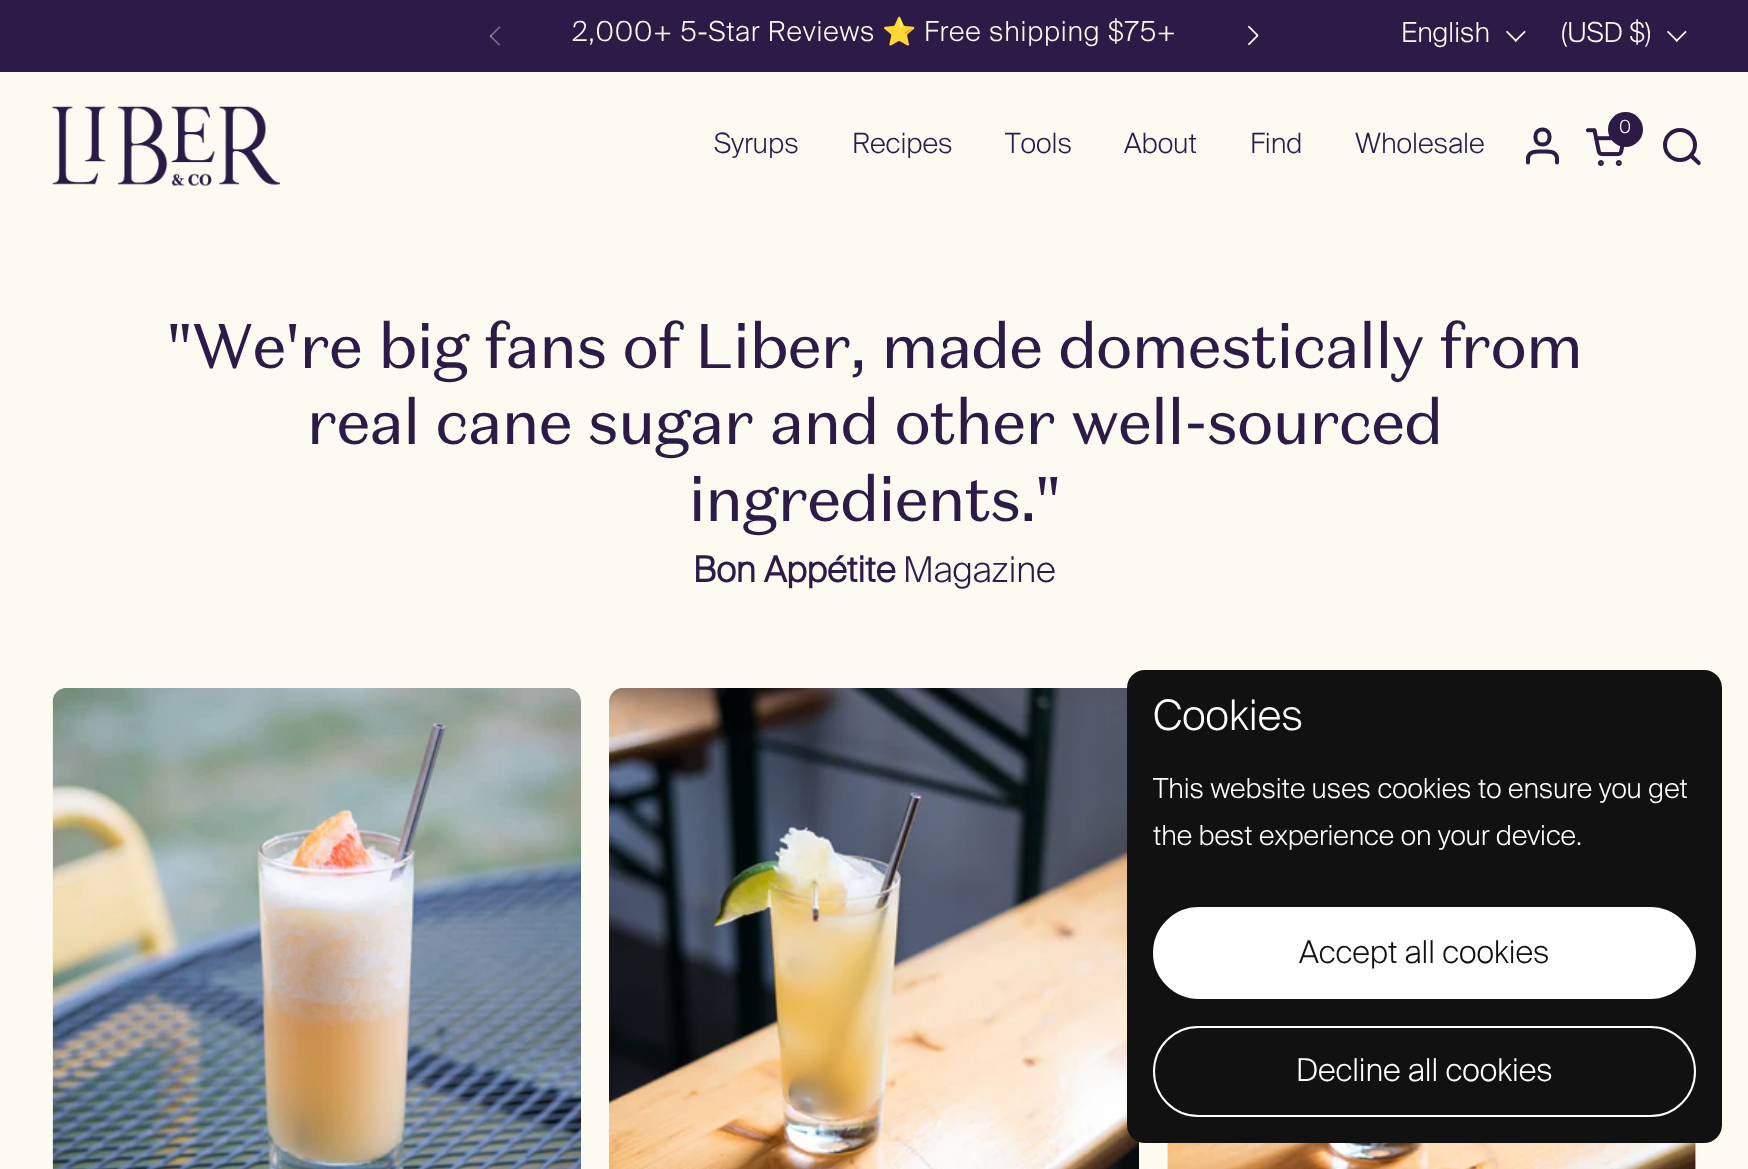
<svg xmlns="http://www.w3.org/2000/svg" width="1748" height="1169">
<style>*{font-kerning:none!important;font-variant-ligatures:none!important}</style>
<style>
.a{font:300 27.6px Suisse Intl;letter-spacing:0.9px;fill:#fcfaf1}
.b{font:27.6px Noto Color Emoji;letter-spacing:0.9px;fill:#fcfaf1}
.c{font:300 27.6px Suisse Intl;fill:#fcfaf1}
.d{font:300 28px Suisse Intl;fill:#2e1a47}
.e{font:300 18px Suisse Intl;fill:#fff}
.f{font:63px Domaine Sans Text;letter-spacing:-1.9px;fill:#2e1a47}
.g{font:bold 35.5px Suisse Intl;fill:#2e1a47}
.h{font:300 35.5px Suisse Intl;fill:#2e1a47}
.i{font:300 42px Suisse Intl;fill:#fff}
.j{font:300 27.6px Suisse Intl;fill:#fff}
.k{font:300 31.5px Suisse Intl;fill:#111}
.l{font:300 31.5px Suisse Intl;fill:#fff}
</style>
<rect width="100%" height="100%" fill="#fcfaf1"/>
<path fill="#2e1a47" d="M0 0h1748v72H0z"/>
<image href="1.png" x="490" y="26" width="11" height="20"/>
<image href="2.png" x="1247" y="25" width="12" height="21"/>
<image href="3.png" x="1506" y="30" width="20" height="12"/>
<image href="3.png" x="1667" y="30" width="20" height="12"/>
<image href="4.png" x="52" y="106" width="228" height="80"/>
<path fill="none" stroke="#2e1a47" stroke-width="4" stroke-linecap="round" stroke-linejoin="round" d="M1557 162.5v-5c-1.5-7-9-6-14.5-6c-5.5 0-13-1-14.5 6v5m14.5-18c9.5 0 9.5-15 0-15c-9.5 0-9.5 15 0 15z"/>
<circle fill="#2e1a47" cx="1625.5" cy="129.5" r="17.5"/>
<circle fill="none" stroke="#2e1a47" stroke-width="4" cx="1680" cy="145" r="15"/>
<path fill="#2e1a47" d="M1693 154.5l-1.5-1l-2.5 2.5l1 1.5zm4.5 10c1.5 2 4.5-1 2.5-3zm-7.5-7l7.5 7l2.5-3l-7-7z"/>
<image href="6.png" x="52" y="688" width="529" height="481"/>
<image href="7.png" x="609" y="688" width="530" height="481"/>
<image href="8.png" x="1167" y="1143" width="529" height="26"/>
<rect fill="#111" x="1127" y="670" width="595" height="473" rx="18"/>
<rect fill="#fff" stroke="#fff" stroke-width="2" x="1154" y="908" width="541" height="90" rx="45"/>
<rect fill="none" stroke="#fff" stroke-width="2" x="1154" y="1027" width="541" height="89" rx="44.5"/>
<text class="a" x="572" y="41">2,000+ 5-Star Reviews</text>
<text class="b" x="882" y="41">⭐</text>
<text class="a" x="924" y="41">Free shipping $75+</text>
<text class="c" x="1401" y="42">English</text>
<text class="c" x="1561" y="42">(USD $)</text>
<text class="d" x="714" y="153">Syrups</text>
<text class="d" x="852" y="153">Recipes</text>
<text class="d" x="1005" y="153">Tools</text>
<text class="d" x="1124" y="153">About</text>
<text class="d" x="1250" y="153">Find</text>
<text class="d" x="1355" y="153">Wholesale</text>
<text class="e" x="1619" y="133">0</text>
<image href="5.png" x="1586" y="128" width="38" height="38"/>
<text class="f" x="166" y="368">"We're big fans of Liber, made domestically from</text>
<text class="f" x="306" y="444">real cane sugar and other well-sourced</text>
<text class="f" x="688" y="521">ingredients."</text>
<text class="g" x="693" y="582">Bon Appétite</text>
<text class="h" x="903" y="582">Magazine</text>
<text class="i" x="1153" y="730">Cookies</text>
<text class="j" x="1153" y="798">This website uses cookies to ensure you get</text>
<text class="j" x="1153" y="845">the best experience on your device.</text>
<text class="k" x="1299" y="963">Accept all cookies</text>
<text class="l" x="1296" y="1081">Decline all cookies</text>
</svg>
